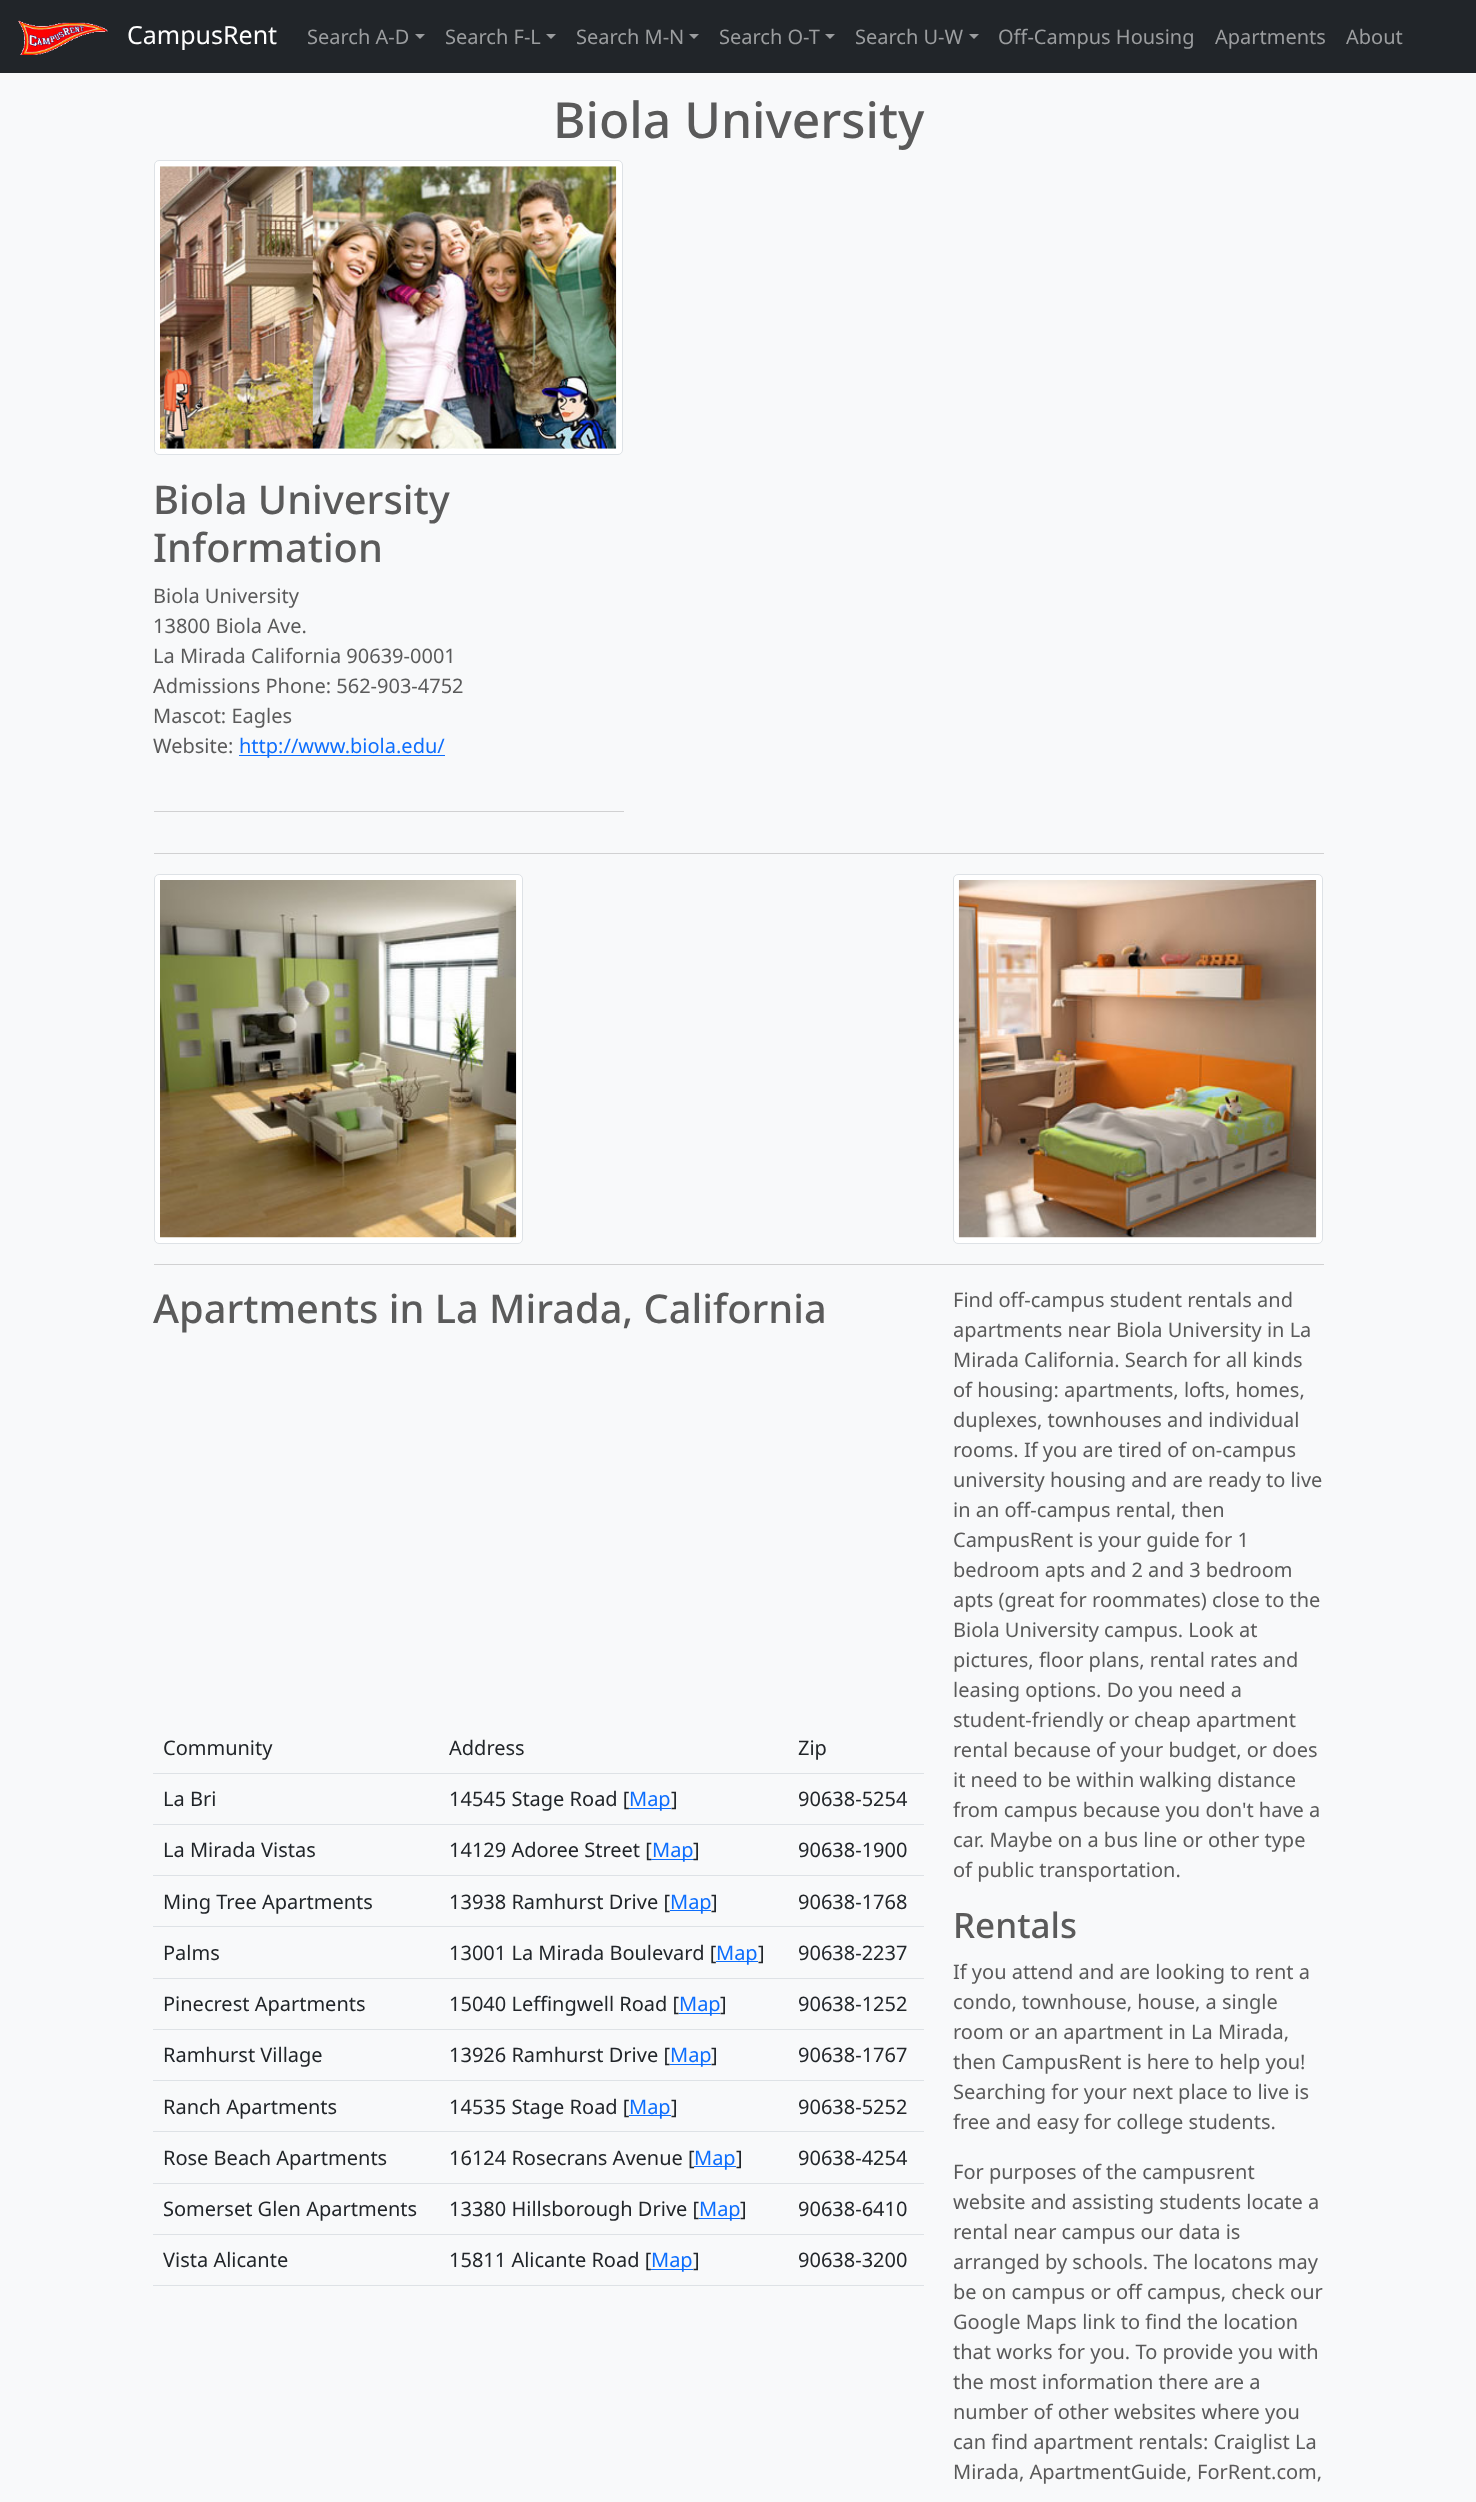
<svg xmlns="http://www.w3.org/2000/svg" width="1476" height="2502">
<style>
.a{font:25px Noto Sans;fill:#fff}
.b{font:20px Noto Sans;fill:#9b9d9f}
.c{font:500 49.75px Noto Sans;fill:#5a5a5a}
.d{font:500 39.75px Noto Sans;fill:#5a5a5a}
.e{font:20px Noto Sans;fill:#5a5a5a}
.f{font:20px Noto Sans;fill:#0d6efd}
.g{font:20px Noto Sans;fill:#212529}
.h{font:500 35px Noto Sans;fill:#5a5a5a}
</style>
<rect width="100%" height="100%" fill="#f8f9fa"/>
<path fill="#212529" d="M0 0h1476v73H0z"/>
<image href="1.png" x="18" y="20" width="90" height="35"/>
<path fill="#9b9d9f" d="M415 34h10l-5 5z"/>
<path fill="#9b9d9f" d="M546 34h10l-5 5z"/>
<path fill="#9b9d9f" d="M689 34h10l-5 5z"/>
<path fill="#9b9d9f" d="M825 34h10l-5 5z"/>
<path fill="#9b9d9f" d="M969 34h10l-5 5z"/>
<rect fill="#fff" stroke="#dee2e6" x="154.5" y="160.5" width="468" height="294" rx="4.5"/>
<image href="2.png" x="160" y="166" width="457" height="283"/>
<path fill="#0d6efd" d="M239 755h206v1H239z"/>
<path fill="#d1d1d2" d="M154 811h470v1H154z"/>
<path fill="#d1d1d2" d="M154 853h1170v1H154z"/>
<rect fill="#fff" stroke="#dee2e6" x="154.5" y="874.5" width="368" height="369" rx="4.5"/>
<image href="3.png" x="160" y="880" width="357" height="358"/>
<rect fill="#fff" stroke="#dee2e6" x="953.5" y="874.5" width="369" height="369" rx="4.5"/>
<image href="4.png" x="958" y="880" width="359" height="358"/>
<path fill="#d1d1d2" d="M154 1264h1170v1H154z"/>
<path fill="#dee2e6" d="M153 1773h771v1H153z"/>
<path fill="#0d6efd" d="M629 1808h42v1H629z"/>
<path fill="#dee2e6" d="M153 1824h771v1H153z"/>
<path fill="#dee2e6" d="M153 1875h771v1H153z"/>
<path fill="#0d6efd" d="M670 1910h41v1H670z"/>
<path fill="#dee2e6" d="M153 1926h771v1H153z"/>
<path fill="#0d6efd" d="M716 1961h42v1H716z"/>
<path fill="#dee2e6" d="M153 1978h771v1H153z"/>
<path fill="#0d6efd" d="M679 2013h41v1H679z"/>
<path fill="#dee2e6" d="M153 2029h771v1H153z"/>
<path fill="#0d6efd" d="M670 2064h41v1H670z"/>
<path fill="#dee2e6" d="M153 2080h771v1H153z"/>
<path fill="#0d6efd" d="M629 2115h42v1H629z"/>
<path fill="#dee2e6" d="M153 2131h771v1H153z"/>
<path fill="#0d6efd" d="M694 2166h42v1H694z"/>
<path fill="#dee2e6" d="M153 2183h771v1H153z"/>
<path fill="#0d6efd" d="M699 2218h41v1H699z"/>
<path fill="#dee2e6" d="M153 2234h771v1H153z"/>
<path fill="#0d6efd" d="M651 2269h42v1H651z"/>
<path fill="#dee2e6" d="M153 2285h771v1H153z"/>
<text class="a" x="127" y="44">CampusRent</text>
<text class="b" x="307" y="44">Search A-D</text>
<text class="b" x="445" y="44">Search F-L</text>
<text class="b" x="576" y="44">Search M-N</text>
<text class="b" x="719" y="44">Search O-T</text>
<text class="b" x="855" y="44">Search U-W</text>
<text class="b" x="998" y="44">Off-Campus Housing</text>
<text class="b" x="1215" y="44">Apartments</text>
<text class="b" x="1346" y="44">About</text>
<text class="c" x="553" y="138">Biola University</text>
<text class="d" x="153" y="514">Biola University</text>
<text class="d" x="153" y="562">Information</text>
<text class="e" x="153" y="603">Biola University</text>
<text class="e" x="153" y="633">13800 Biola Ave.</text>
<text class="e" x="153" y="663">La Mirada California 90639-0001</text>
<text class="e" x="153" y="693">Admissions Phone: 562-903-4752</text>
<text class="e" x="153" y="723">Mascot: Eagles</text>
<text class="e" x="153" y="753">Website:</text>
<text class="f" x="239" y="753">http://www.biola.edu/</text>
<text class="d" x="153" y="1323">Apartments in La Mirada, California</text>
<text class="g" x="163" y="1755">Community</text>
<text class="g" x="449" y="1755">Address</text>
<text class="g" x="798" y="1755">Zip</text>
<text class="g" x="163" y="1806">La Bri</text>
<text class="g" x="449" y="1806">14545 Stage Road [</text>
<text class="f" x="629" y="1806">Map</text>
<text class="g" x="671" y="1806">]</text>
<text class="g" x="798" y="1806">90638-5254</text>
<text class="g" x="163" y="1857">La Mirada Vistas</text>
<text class="g" x="449" y="1857">14129 Adoree Street [</text>
<path fill="#0d6efd" d="M651 1859h43v1H651z"/>
<text class="f" x="652" y="1857">Map</text>
<text class="g" x="693" y="1857">]</text>
<text class="g" x="798" y="1857">90638-1900</text>
<text class="g" x="163" y="1909">Ming Tree Apartments</text>
<text class="g" x="449" y="1909">13938 Ramhurst Drive [</text>
<text class="f" x="670" y="1909">Map</text>
<text class="g" x="711" y="1909">]</text>
<text class="g" x="798" y="1909">90638-1768</text>
<text class="g" x="163" y="1960">Palms</text>
<text class="g" x="449" y="1960">13001 La Mirada Boulevard [</text>
<text class="f" x="716" y="1960">Map</text>
<text class="g" x="758" y="1960">]</text>
<text class="g" x="798" y="1960">90638-2237</text>
<text class="g" x="163" y="2011">Pinecrest Apartments</text>
<text class="g" x="449" y="2011">15040 Leffingwell Road [</text>
<text class="f" x="679" y="2011">Map</text>
<text class="g" x="720" y="2011">]</text>
<text class="g" x="798" y="2011">90638-1252</text>
<text class="g" x="163" y="2062">Ramhurst Village</text>
<text class="g" x="449" y="2062">13926 Ramhurst Drive [</text>
<text class="f" x="670" y="2062">Map</text>
<text class="g" x="711" y="2062">]</text>
<text class="g" x="798" y="2062">90638-1767</text>
<text class="g" x="163" y="2114">Ranch Apartments</text>
<text class="g" x="449" y="2114">14535 Stage Road [</text>
<text class="f" x="629" y="2114">Map</text>
<text class="g" x="671" y="2114">]</text>
<text class="g" x="798" y="2114">90638-5252</text>
<text class="g" x="163" y="2165">Rose Beach Apartments</text>
<text class="g" x="449" y="2165">16124 Rosecrans Avenue [</text>
<text class="f" x="694" y="2165">Map</text>
<text class="g" x="736" y="2165">]</text>
<text class="g" x="798" y="2165">90638-4254</text>
<text class="g" x="163" y="2216">Somerset Glen Apartments</text>
<text class="g" x="449" y="2216">13380 Hillsborough Drive [</text>
<text class="f" x="699" y="2216">Map</text>
<text class="g" x="740" y="2216">]</text>
<text class="g" x="798" y="2216">90638-6410</text>
<text class="g" x="163" y="2267">Vista Alicante</text>
<text class="g" x="449" y="2267">15811 Alicante Road [</text>
<text class="f" x="651" y="2267">Map</text>
<text class="g" x="693" y="2267">]</text>
<text class="g" x="798" y="2267">90638-3200</text>
<text class="e" x="953" y="1307">Find off-campus student rentals and</text>
<text class="e" x="953" y="1337">apartments near Biola University in La</text>
<text class="e" x="953" y="1367">Mirada California. Search for all kinds</text>
<text class="e" x="953" y="1397">of housing: apartments, lofts, homes,</text>
<text class="e" x="953" y="1427">duplexes, townhouses and individual</text>
<text class="e" x="953" y="1457">rooms. If you are tired of on-campus</text>
<text class="e" x="953" y="1487">university housing and are ready to live</text>
<text class="e" x="953" y="1517">in an off-campus rental, then</text>
<text class="e" x="953" y="1547">CampusRent is your guide for 1</text>
<text class="e" x="953" y="1577">bedroom apts and 2 and 3 bedroom</text>
<text class="e" x="953" y="1607">apts (great for roommates) close to the</text>
<text class="e" x="953" y="1637">Biola University campus. Look at</text>
<text class="e" x="953" y="1667">pictures, floor plans, rental rates and</text>
<text class="e" x="953" y="1697">leasing options. Do you need a</text>
<text class="e" x="953" y="1727">student-friendly or cheap apartment</text>
<text class="e" x="953" y="1757">rental because of your budget, or does</text>
<text class="e" x="953" y="1787">it need to be within walking distance</text>
<text class="e" x="953" y="1817">from campus because you don't have a</text>
<text class="e" x="953" y="1847">car. Maybe on a bus line or other type</text>
<text class="e" x="953" y="1877">of public transportation.</text>
<text class="h" x="953" y="1938">Rentals</text>
<text class="e" x="953" y="1979">If you attend and are looking to rent a</text>
<text class="e" x="953" y="2009">condo, townhouse, house, a single</text>
<text class="e" x="953" y="2039">room or an apartment in La Mirada,</text>
<text class="e" x="953" y="2069">then CampusRent is here to help you!</text>
<text class="e" x="953" y="2099">Searching for your next place to live is</text>
<text class="e" x="953" y="2129">free and easy for college students.</text>
<text class="e" x="953" y="2179">For purposes of the campusrent</text>
<text class="e" x="953" y="2209">website and assisting students locate a</text>
<text class="e" x="953" y="2239">rental near campus our data is</text>
<text class="e" x="953" y="2269">arranged by schools. The locatons may</text>
<text class="e" x="953" y="2299">be on campus or off campus, check our</text>
<text class="e" x="953" y="2329">Google Maps link to find the location</text>
<text class="e" x="953" y="2359">that works for you. To provide you with</text>
<text class="e" x="953" y="2389">the most information there are a</text>
<text class="e" x="953" y="2419">number of other websites where you</text>
<text class="e" x="953" y="2449">can find apartment rentals: Craiglist La</text>
<text class="e" x="953" y="2479">Mirada, ApartmentGuide, ForRent.com,</text>
</svg>
